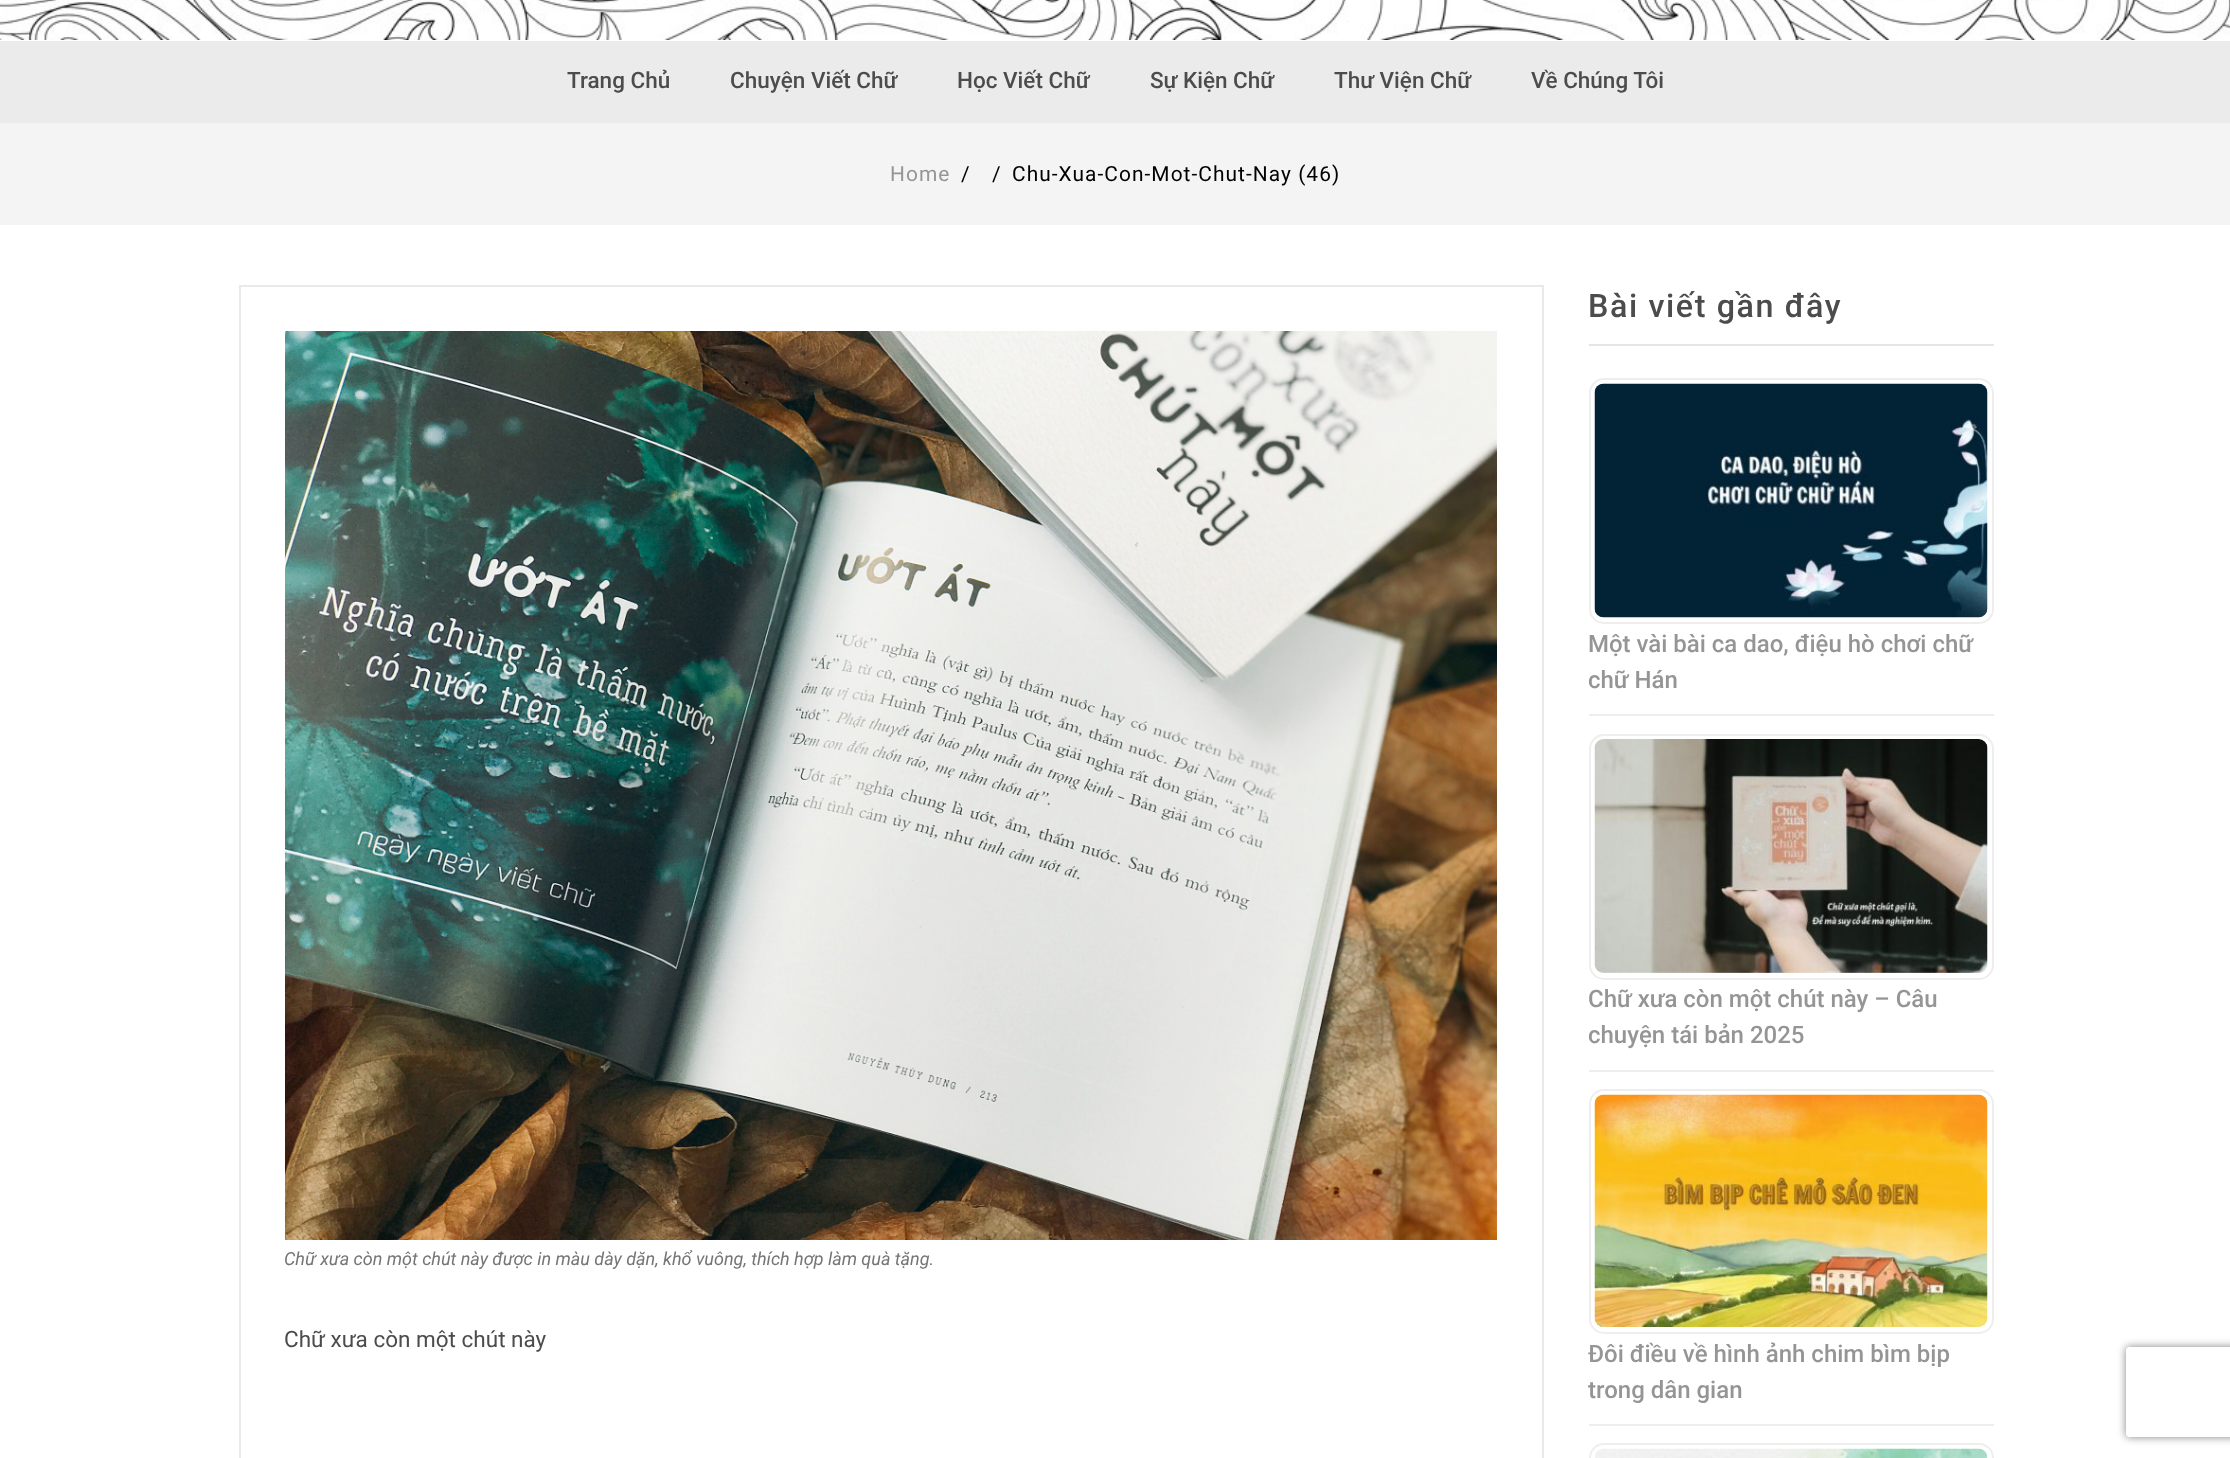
<svg xmlns="http://www.w3.org/2000/svg" width="2230" height="1458">
<style>
.a{font:500 22.5px Roboto;fill:#4c4c4c}
.b{font:20.9px Roboto;letter-spacing:1.05px;fill:#959595}
.c{font:20.9px Roboto;letter-spacing:1.05px;fill:#000}
.d{font:italic 18px Roboto;fill:#757575}
.e{font:22.5px Roboto;fill:#4c4c4c}
.f{font:500 32.25px Roboto;letter-spacing:1.6px;fill:#4c4c4c}
.g{font:500 24px Roboto;fill:#959595}
</style>
<defs>
<clipPath id="clip1"><path d="M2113 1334h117v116h-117zm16 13h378c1.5 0 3 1.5 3 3v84c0 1.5-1.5 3-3 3h-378c-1.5 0-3-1.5-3-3v-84c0-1.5 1.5-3 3-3z" clip-rule="evenodd"/></clipPath>
</defs>
<rect width="100%" height="100%" fill="#fff"/>
<image href="1.png" x="0" y="0" width="2230" height="40"/>
<path fill="#ecebec" d="M0 41h2230v82H0z"/>
<path fill="#f4f4f4" d="M0 123h2230v102H0z"/>
<path fill="none" stroke="#e9e9e9" stroke-width="2" d="M240 286h1303v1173H240z"/>
<image href="2.png" x="285" y="331" width="1212" height="909"/>
<path fill="#e5e5e5" d="M1589 344h405v2H1589z"/>
<path fill="#eee" d="M1589 714h405v2H1589z"/>
<rect fill="none" stroke="#eee" stroke-width="2" x="1590" y="379" width="403" height="244" rx="14"/>
<image href="3.png" x="1594" y="383" width="394" height="235"/>
<path fill="#eee" d="M1589 1070h405v2H1589z"/>
<rect fill="none" stroke="#eee" stroke-width="2" x="1590" y="735" width="403" height="244" rx="14"/>
<image href="4.png" x="1594" y="739" width="394" height="234"/>
<path fill="#eee" d="M1589 1424h405v2H1589z"/>
<rect fill="none" stroke="#eee" stroke-width="2" x="1590" y="1090" width="403" height="243" rx="14"/>
<image href="5.png" x="1594" y="1094" width="394" height="233"/>
<rect fill="none" stroke="#eee" stroke-width="2" x="1590" y="1444" width="403" height="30" rx="14"/>
<image href="6.png" x="1595" y="1448" width="393" height="10"/>
<g clip-path="url(#clip1)">
<rect fill="#808080" filter="blur(4px)" x="2126" y="1347" width="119" height="90" rx="3"/>
</g>
<text class="a" x="567" y="88">Trang Chủ</text>
<text class="a" x="730" y="88">Chuyện Viết Chữ</text>
<text class="a" x="957" y="88">Học Viết Chữ</text>
<text class="a" x="1150" y="88">Sự Kiện Chữ</text>
<text class="a" x="1334" y="88">Thư Viện Chữ</text>
<text class="a" x="1531" y="88">Về Chúng Tôi</text>
<text class="b" x="890" y="181">Home</text>
<text class="c" x="961" y="181">/</text>
<text class="c" x="992" y="181">/</text>
<text class="c" x="1012" y="181">Chu-Xua-Con-Mot-Chut-Nay (46)</text>
<text class="d" x="284" y="1265">Chữ xưa còn một chút này được in màu dày dặn, khổ vuông, thích hợp làm quà tặng.</text>
<text class="e" x="284" y="1347">Chữ xưa còn một chút này</text>
<text class="f" x="1588" y="317">Bài viết gần đây</text>
<text class="g" x="1588" y="652">Một vài bài ca dao, điệu hò chơi chữ</text>
<text class="g" x="1588" y="688">chữ Hán</text>
<text class="g" x="1588" y="1007">Chữ xưa còn một chút này – Câu</text>
<text class="g" x="1588" y="1043">chuyện tái bản 2025</text>
<text class="g" x="1588" y="1362">Đôi điều về hình ảnh chim bìm bịp</text>
<text class="g" x="1588" y="1398">trong dân gian</text>
</svg>
